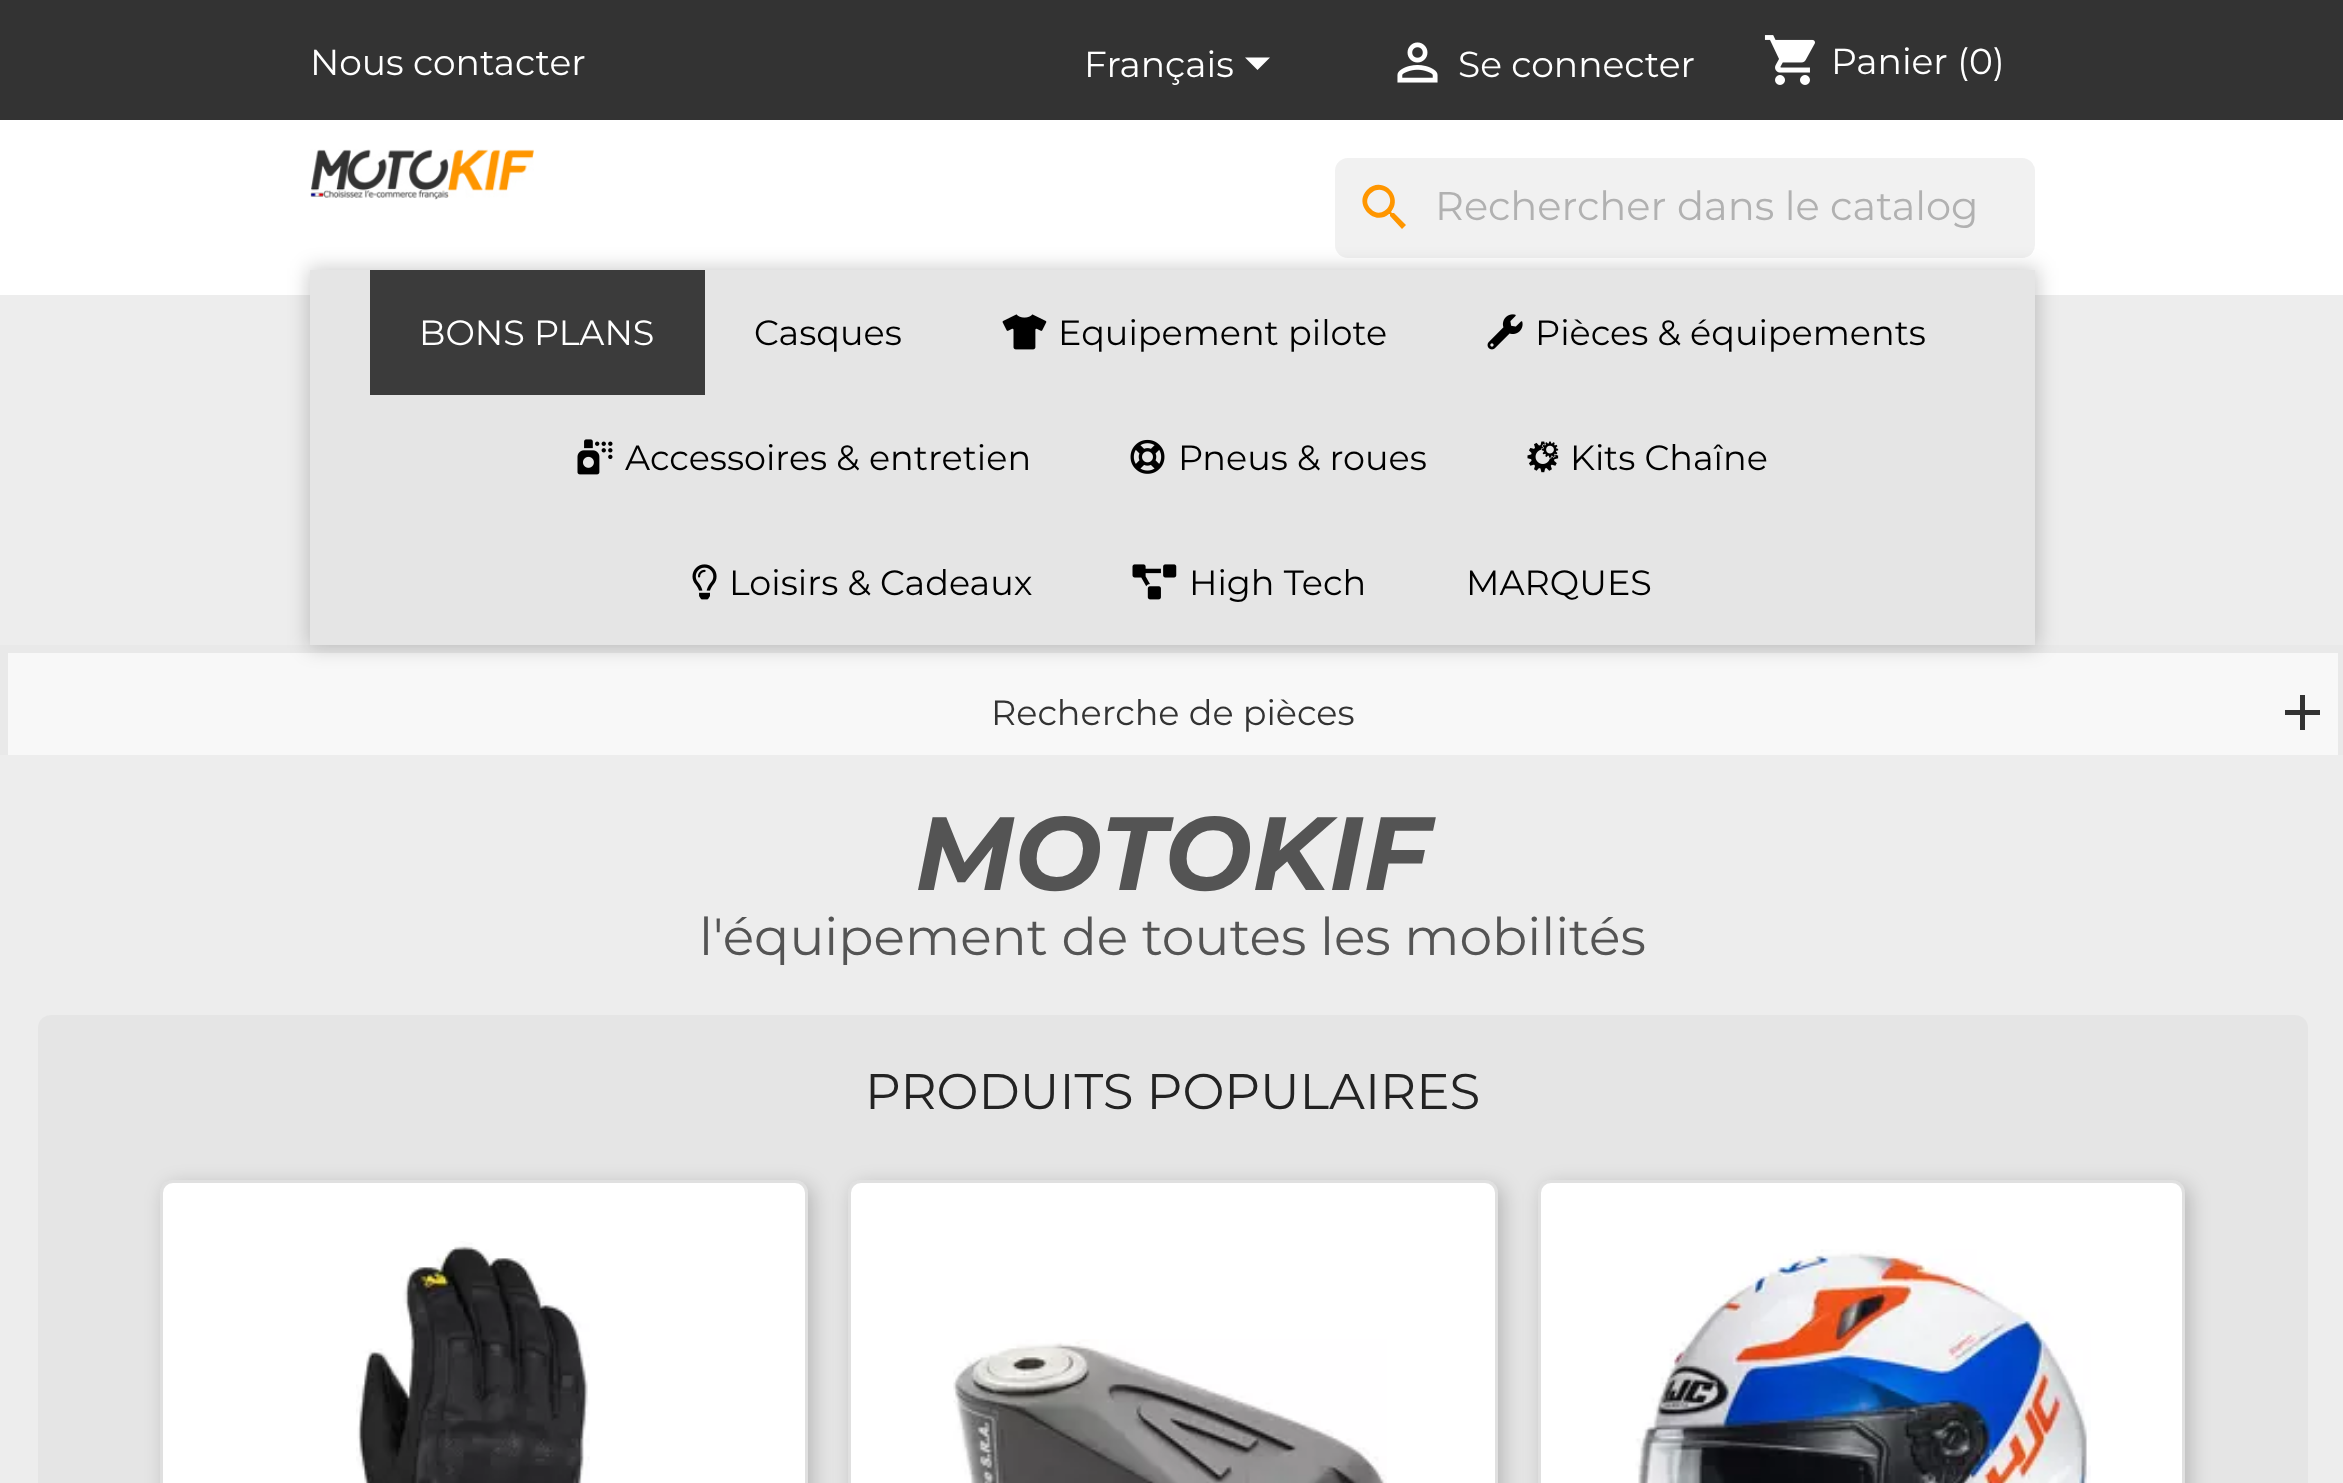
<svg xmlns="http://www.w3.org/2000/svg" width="2343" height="1483">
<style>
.a{font:36px Montserrat;fill:#fff}
.b{font:40px Montserrat;fill:#b1b1b1}
.c{font:35px Montserrat;fill:#fff}
.d{font:35px Montserrat;fill:#000}
.e{font:35px Montserrat;fill:#333}
.f{font:italic bold 104px Montserrat;fill:#545454}
.g{font:52px Montserrat;fill:#545454}
.h{font:50px Montserrat;fill:#232323}
</style>
<rect width="100%" height="100%" fill="#ededed"/>
<path fill="#333" d="M0 0h2343v120H0z"/>
<path fill="#fff" d="M1245 57.5h25l-12.5 12.5z"/>
<image href="1.png" x="1397" y="42" width="41" height="41"/>
<image href="2.png" x="1764" y="35" width="51" height="50"/>
<path fill="#fff" d="M0 120h2343v175H0z"/>
<image href="3.png" x="310" y="149" width="224" height="51"/>
<rect fill="#f1f1f1" x="1335" y="158" width="700" height="100" rx="13"/>
<path fill="#ff9600" d="M1371 209c10 11 26-5 16-16c-11-10-27 6-16 16zm23 4l12 12l-4 4l-12-13v-2h-1c-15 13-36-10-22-24c15-15 37 6 24 22l1 1z"/>
<path fill="none" stroke="#e9e9e9" stroke-width="8" d="M4 649h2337v135H4z"/>
<path fill="#f8f8f8" d="M8 653h2330v102H8z"/>
<path fill="#00000033" filter="blur(10px)" d="M308 268h1730v380H308z"/>
<path fill="#e5e5e5" d="M310 270h1725v375H310z"/>
<path fill="#3b3b3b" d="M370 270h335v125H370z"/>
<image href="4.png" x="1002" y="314" width="45" height="36"/>
<image href="5.png" x="1487" y="314" width="36" height="36"/>
<image href="6.png" x="577" y="439" width="36" height="36"/>
<image href="7.png" x="1130" y="439" width="35" height="35"/>
<image href="8.png" x="1527" y="441" width="32" height="32"/>
<image href="9.png" x="692" y="564" width="25" height="36"/>
<image href="10.png" x="1132" y="564" width="45" height="36"/>
<path fill="#333" d="M2320 715h-15v15h-5v-15h-15v-5h15v-15h5v15h15z"/>
<path fill="#ededed" d="M0 755h2343v33H0z"/>
<rect fill="#e5e5e5" x="38" y="1015" width="2270" height="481" rx="13"/>
<rect fill="#00000033" filter="blur(10px)" x="165" y="1185" width="648" height="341" rx="13"/>
<rect fill="#fff" x="160" y="1180" width="648" height="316" rx="13"/>
<rect fill="none" stroke="#0000001f" stroke-width="3" x="161.5" y="1181.5" width="645" height="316" rx="11.5"/>
<image href="11.png" x="356" y="1241" width="234" height="242"/>
<rect fill="#00000033" filter="blur(10px)" x="853" y="1185" width="650" height="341" rx="13"/>
<rect fill="#fff" x="848" y="1180" width="650" height="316" rx="13"/>
<rect fill="none" stroke="#0000001f" stroke-width="3" x="849.5" y="1181.5" width="647" height="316" rx="11.5"/>
<image href="12.png" x="953" y="1339" width="434" height="144"/>
<rect fill="#00000033" filter="blur(10px)" x="1543" y="1185" width="647" height="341" rx="13"/>
<rect fill="#fff" x="1538" y="1180" width="647" height="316" rx="13"/>
<rect fill="none" stroke="#0000001f" stroke-width="3" x="1539.5" y="1181.5" width="644" height="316" rx="11.5"/>
<image href="13.png" x="1635" y="1249" width="456" height="234"/>
<text class="a" x="310" y="75">Nous contacter</text>
<text class="a" x="1084" y="77">Français</text>
<text class="a" x="1458" y="77">Se connecter</text>
<text class="a" x="1831" y="74">Panier (0)</text>
<text class="b" x="1435" y="220">Rechercher dans le catalog</text>
<text class="c" x="419" y="345">BONS PLANS</text>
<text class="d" x="754" y="345">Casques</text>
<text class="d" x="1058" y="345">Equipement pilote</text>
<text class="d" x="1535" y="345">Pièces &amp; équipements</text>
<text class="d" x="625" y="470">Accessoires &amp; entretien</text>
<text class="d" x="1178" y="470">Pneus &amp; roues</text>
<text class="d" x="1570" y="470">Kits Chaîne</text>
<text class="d" x="729" y="595">Loisirs &amp; Cadeaux</text>
<text class="d" x="1189" y="595">High Tech</text>
<text class="d" x="1466" y="595">MARQUES</text>
<text class="e" x="991" y="725">Recherche de pièces</text>
<text class="f" x="915" y="890">MOTOKIF</text>
<text class="g" x="699" y="955">l'équipement de toutes les mobilités</text>
<text class="h" x="865" y="1109">PRODUITS POPULAIRES</text>
</svg>
